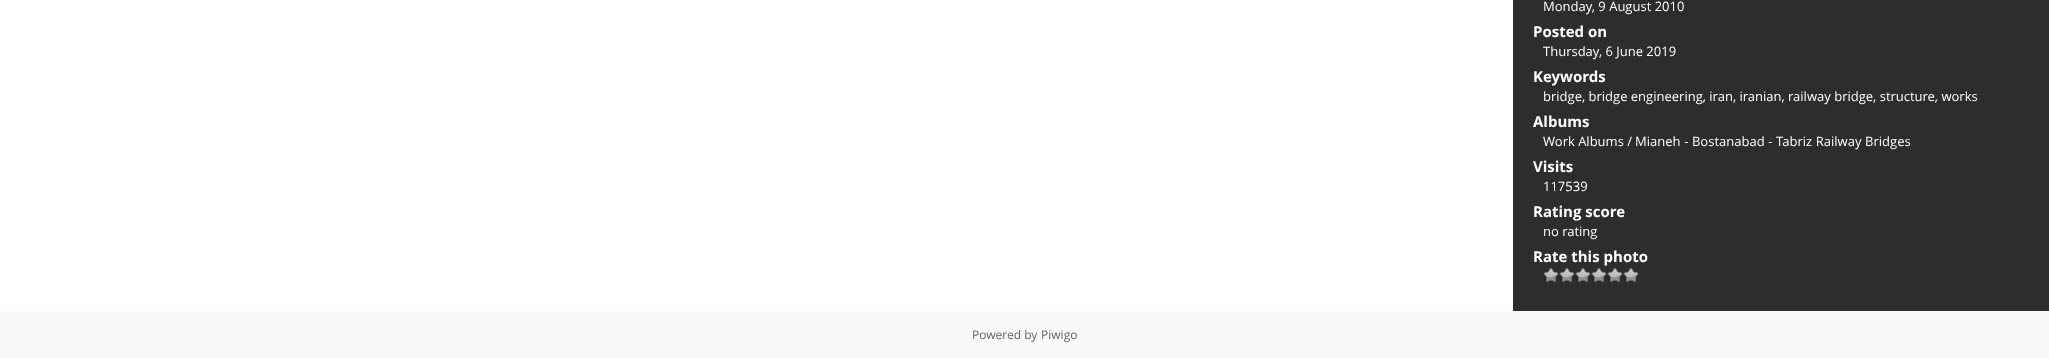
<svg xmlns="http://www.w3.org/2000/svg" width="2049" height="358">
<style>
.a{font:13px Open Sans;fill:#fff}
.b{font:bold 15px Open Sans;fill:#fff}
.c{font:12px Open Sans;fill:#666}
</style>
<rect width="100%" height="100%" fill="#fff"/>
<path fill="#2d2d2d" d="M1513 0h536v311H1513z"/>
<image href="1.png" x="1543" y="268" width="16" height="14"/>
<image href="1.png" x="1559" y="268" width="16" height="14"/>
<image href="1.png" x="1575" y="268" width="16" height="14"/>
<image href="1.png" x="1591" y="268" width="16" height="14"/>
<image href="1.png" x="1607" y="268" width="16" height="14"/>
<image href="1.png" x="1623" y="268" width="16" height="14"/>
<path fill="#f9f9f9" d="M0 311h2049v47H0z"/>
<text class="a" x="1543" y="11">Monday, 9 August 2010</text>
<text class="b" x="1533" y="37">Posted on</text>
<text class="a" x="1543" y="56">Thursday, 6 June 2019</text>
<text class="b" x="1533" y="82">Keywords</text>
<text class="a" x="1543" y="101">bridge, bridge engineering, iran, iranian, railway bridge, structure, works</text>
<text class="b" x="1533" y="127">Albums</text>
<text class="a" x="1543" y="146">Work Albums /</text>
<text class="a" x="1635" y="146" word-spacing="0.25">Mianeh - Bostanabad - Tabriz Railway Bridges</text>
<text class="b" x="1533" y="172">Visits</text>
<text class="a" x="1543" y="191">117539</text>
<text class="b" x="1533" y="217">Rating score</text>
<text class="a" x="1543" y="236">no rating</text>
<text class="b" x="1533" y="262">Rate this photo</text>
<text class="c" x="972" y="339">Powered by</text>
<text class="c" x="1041" y="339">Piwigo</text>
</svg>
